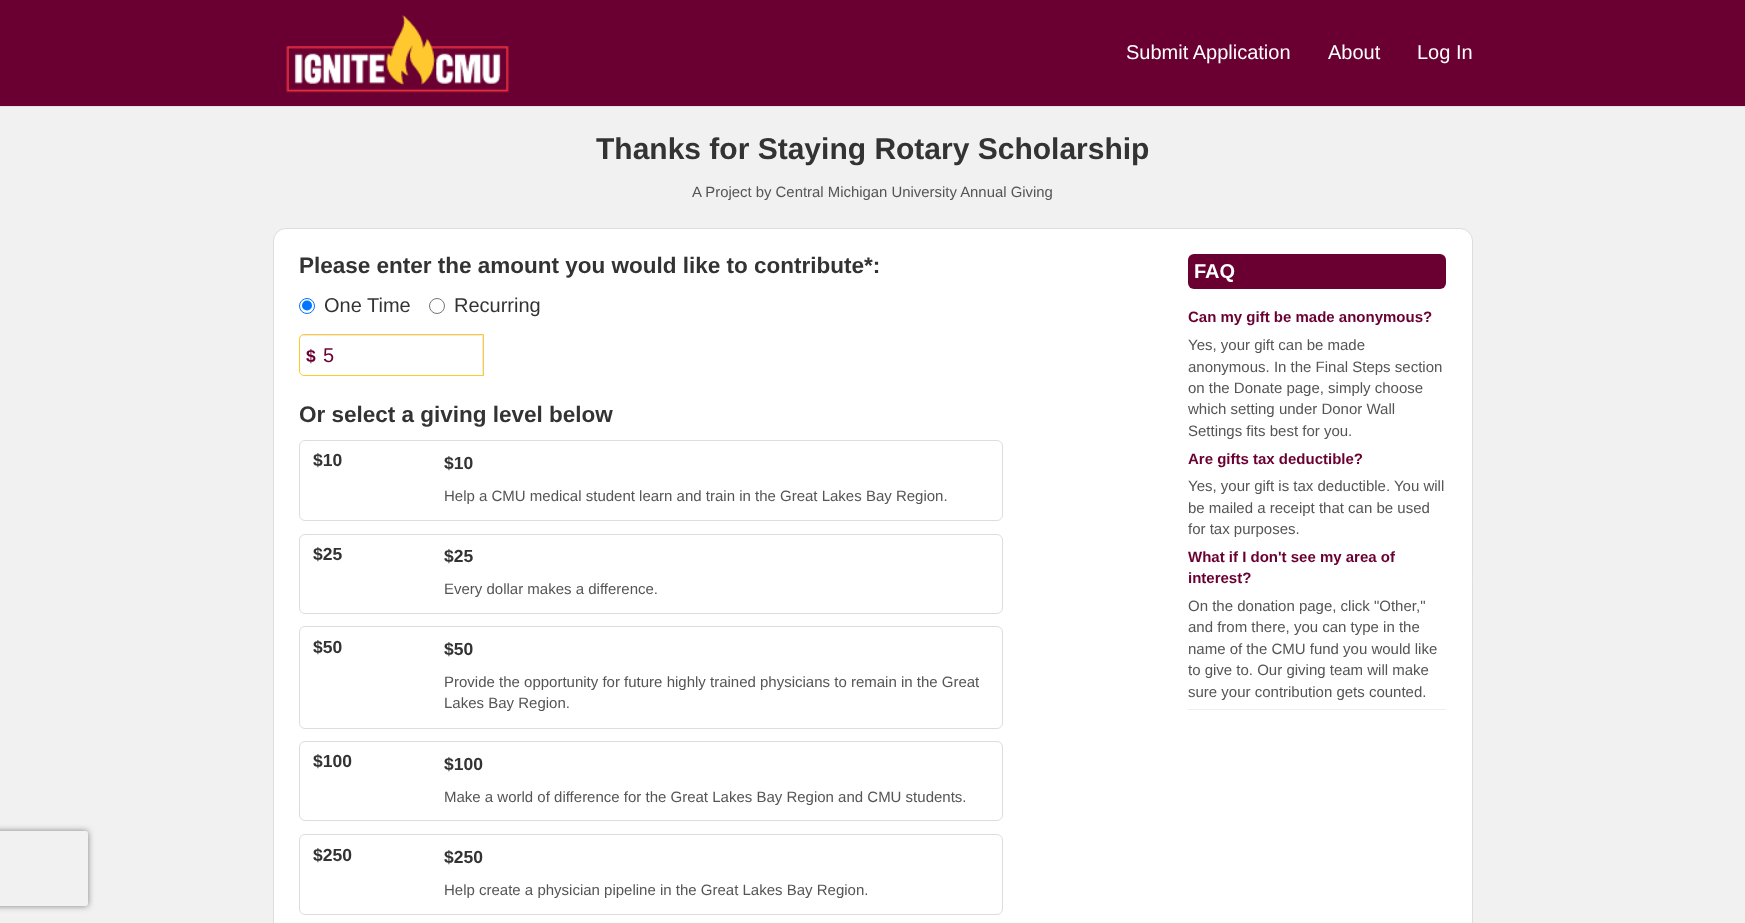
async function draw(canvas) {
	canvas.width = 1745;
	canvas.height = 923;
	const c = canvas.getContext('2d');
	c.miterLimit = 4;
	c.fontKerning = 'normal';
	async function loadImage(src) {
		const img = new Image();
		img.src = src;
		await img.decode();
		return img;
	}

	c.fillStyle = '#6a0032';
	c.fillRect(0, 0, 1745, 923);
	c.drawImage(await loadImage('img1.png'), 286, 15, 223, 78);
	c.font = '20px Liberation Sans';
	c.fillStyle = '#fff';
	for (const [text, x, y] of [
		['Submit Application', 1126, 59],
		['About', 1328, 59],
		['Log In', 1417, 59],
	]) {
		c.fillText(text, x, y);
	}
	c.fillStyle = '#f1f1f1';
	c.fillRect(0, 107, 1745, 816);
	c.save();
	c.beginPath();
	c.moveTo(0, 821);
	c.lineTo(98, 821);
	c.lineTo(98, 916);
	c.lineTo(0, 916);
	c.closePath();
	c.moveTo(-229.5, 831);
	c.lineTo(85.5, 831);
	c.bezierCurveTo(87, 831, 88, 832, 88, 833.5);
	c.lineTo(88, 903.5);
	c.bezierCurveTo(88, 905, 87, 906, 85.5, 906);
	c.lineTo(-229.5, 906);
	c.bezierCurveTo(-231, 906, -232, 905, -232, 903.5);
	c.lineTo(-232, 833.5);
	c.bezierCurveTo(-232, 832, -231, 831, -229.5, 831);
	c.closePath();
	c.clip('evenodd');
	c.fillStyle = '#808080';
	c.filter = 'blur(3px)';
	c.beginPath();
	c.roundRect(-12, 831, 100, 75, 2.5);
	c.fill();
	c.filter = 'none';
	c.restore();
	c.fillStyle = '#e4e4e4';
	c.fillRect(0, 106, 1745, 1);
	c.font = 'bold 30px Liberation Sans';
	c.fillStyle = '#333';
	c.fillText('Thanks for Staying Rotary Scholarship', 596, 159);
	c.font = '14.9px Liberation Sans';
	c.fillStyle = '#555';
	c.fillText('A Project by Central Michigan University Annual Giving', 692, 197);
	c.fillStyle = '#fff';
	c.beginPath();
	c.roundRect(273.5, 228.5, 1199, 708, 12.5);
	c.fill();
	c.strokeStyle = '#ddd';
	c.stroke();
	c.font = 'bold 22.5px Liberation Sans';
	c.fillStyle = '#333';
	c.fillText('Please enter the amount you would like to contribute*:', 299, 273);
	c.beginPath();
	c.arc(307, 306, 7.5, 0, 2 * Math.PI);
	c.strokeStyle = '#0075ff';
	c.stroke();
	c.fillStyle = '#0075ff';
	c.beginPath();
	c.arc(307, 305.5, 5, 0, 2 * Math.PI);
	c.fill();
	c.font = '20px Liberation Sans';
	c.fillStyle = '#333';
	c.fillText('One Time', 324, 312);
	c.beginPath();
	c.arc(437, 306, 7.5, 0, 2 * Math.PI);
	c.strokeStyle = '#767676';
	c.stroke();
	c.fillText('Recurring', 454, 312);
	c.fillStyle = '#ececec';
	c.beginPath();
	c.moveTo(304, 336);
	c.lineTo(482, 336);
	c.lineTo(482, 375);
	c.lineTo(483, 375);
	c.lineTo(483, 335);
	c.lineTo(303, 335);
	c.bezierCurveTo(301, 336, 300, 338, 300, 340);
	c.bezierCurveTo(300, 338, 302, 336, 304, 336);
	c.closePath();
	c.fill();
	c.beginPath();
	c.roundRect(299.5, 334.5, 184, 41, [4.5, 0, 0, 4.5]);
	c.strokeStyle = '#ffc82e';
	c.stroke();
	c.font = 'bold 17.5px Liberation Sans';
	c.fillStyle = '#6a0032';
	c.fillText('$', 306, 362);
	c.font = '20px Liberation Sans';
	c.fillText('5', 323, 362);
	c.font = 'bold 22.5px Liberation Sans';
	c.fillStyle = '#333';
	c.fillText('Or select a giving level below', 299, 422);
	c.beginPath();
	c.roundRect(299.5, 440.5, 703, 80, 5.5);
	c.strokeStyle = '#ddd';
	c.stroke();
	c.font = 'bold 17.5px Liberation Sans';
	c.fillText('$10', 313, 466);
	c.fillText('$10', 444, 469);
	c.font = '15px Liberation Sans';
	c.fillStyle = '#555';
	c.fillText('Help a CMU medical student learn and train in the Great Lakes Bay Region.', 444, 501);
	c.beginPath();
	c.roundRect(299.5, 534.5, 703, 79, 5.5);
	c.stroke();
	c.font = 'bold 17.5px Liberation Sans';
	c.fillStyle = '#333';
	c.fillText('$25', 313, 560);
	c.fillText('$25', 444, 562);
	c.font = '15px Liberation Sans';
	c.fillStyle = '#555';
	c.fillText('Every dollar makes a difference.', 444, 594);
	c.beginPath();
	c.roundRect(299.5, 626.5, 703, 102, 5.5);
	c.stroke();
	c.font = 'bold 17.5px Liberation Sans';
	c.fillStyle = '#333';
	c.fillText('$50', 313, 653);
	c.fillText('$50', 444, 655);
	c.font = '15px Liberation Sans';
	c.fillStyle = '#555';
	c.fillText('Provide the opportunity for future highly trained physicians to remain in the Great', 444, 687);
	c.fillText('Lakes Bay Region.', 444, 708);
	c.beginPath();
	c.roundRect(299.5, 741.5, 703, 79, 5.5);
	c.stroke();
	c.font = 'bold 17.5px Liberation Sans';
	c.fillStyle = '#333';
	c.fillText('$100', 313, 767);
	c.fillText('$100', 444, 770);
	c.font = '15px Liberation Sans';
	c.fillStyle = '#555';
	c.fillText('Make a world of difference for the Great Lakes Bay Region and CMU students.', 444, 802);
	c.beginPath();
	c.roundRect(299.5, 834.5, 703, 80, 5.5);
	c.stroke();
	c.font = 'bold 17.5px Liberation Sans';
	c.fillStyle = '#333';
	c.fillText('$250', 313, 861);
	c.fillText('$250', 444, 863);
	c.font = '15px Liberation Sans';
	c.fillStyle = '#555';
	c.fillText('Help create a physician pipeline in the Great Lakes Bay Region.', 444, 895);
	c.fillStyle = '#6a0032';
	c.beginPath();
	c.roundRect(1188, 254, 258, 35, 6);
	c.fill();
	c.font = 'bold 20px Liberation Sans';
	c.fillStyle = '#fff';
	c.fillText('FAQ', 1194, 278);
	c.fillStyle = '#eee';
	c.fillRect(1188, 709, 258, 1);
	c.font = 'bold 15px Liberation Sans';
	c.fillStyle = '#6a0032';
	c.fillText('Can my gift be made anonymous?', 1188, 322);
	c.font = '15px Liberation Sans';
	c.fillStyle = '#555';
	for (const [text, x, y] of [
		['Yes, your gift can be made', 1188, 350],
		['anonymous. In the Final Steps section', 1188, 372],
		['on the Donate page, simply choose', 1188, 393],
		['which setting under Donor Wall', 1188, 414],
		['Settings fits best for you.', 1188, 436],
	]) {
		c.fillText(text, x, y);
	}
	c.font = 'bold 15px Liberation Sans';
	c.fillStyle = '#6a0032';
	c.fillText('Are gifts tax deductible?', 1188, 464);
	c.font = '15px Liberation Sans';
	c.fillStyle = '#555';
	for (const [text, x, y] of [
		['Yes, your gift is tax deductible. You will', 1188, 491],
		['be mailed a receipt that can be used', 1188, 513],
		['for tax purposes.', 1188, 534],
	]) {
		c.fillText(text, x, y);
	}
	c.font = 'bold 15px Liberation Sans';
	c.fillStyle = '#6a0032';
	c.fillText('What if I don\'t see my area of', 1188, 562);
	c.fillText('interest?', 1188, 583);
	c.font = '15px Liberation Sans';
	c.fillStyle = '#555';
	for (const [text, x, y] of [
		['On the donation page, click "Other,"', 1188, 611],
		['and from there, you can type in the', 1188, 632],
		['name of the CMU fund you would like', 1188, 654],
		['to give to. Our giving team will make', 1188, 675],
		['sure your contribution gets counted.', 1188, 697],
	]) {
		c.fillText(text, x, y);
	}
}

draw(document.querySelector('canvas'));
